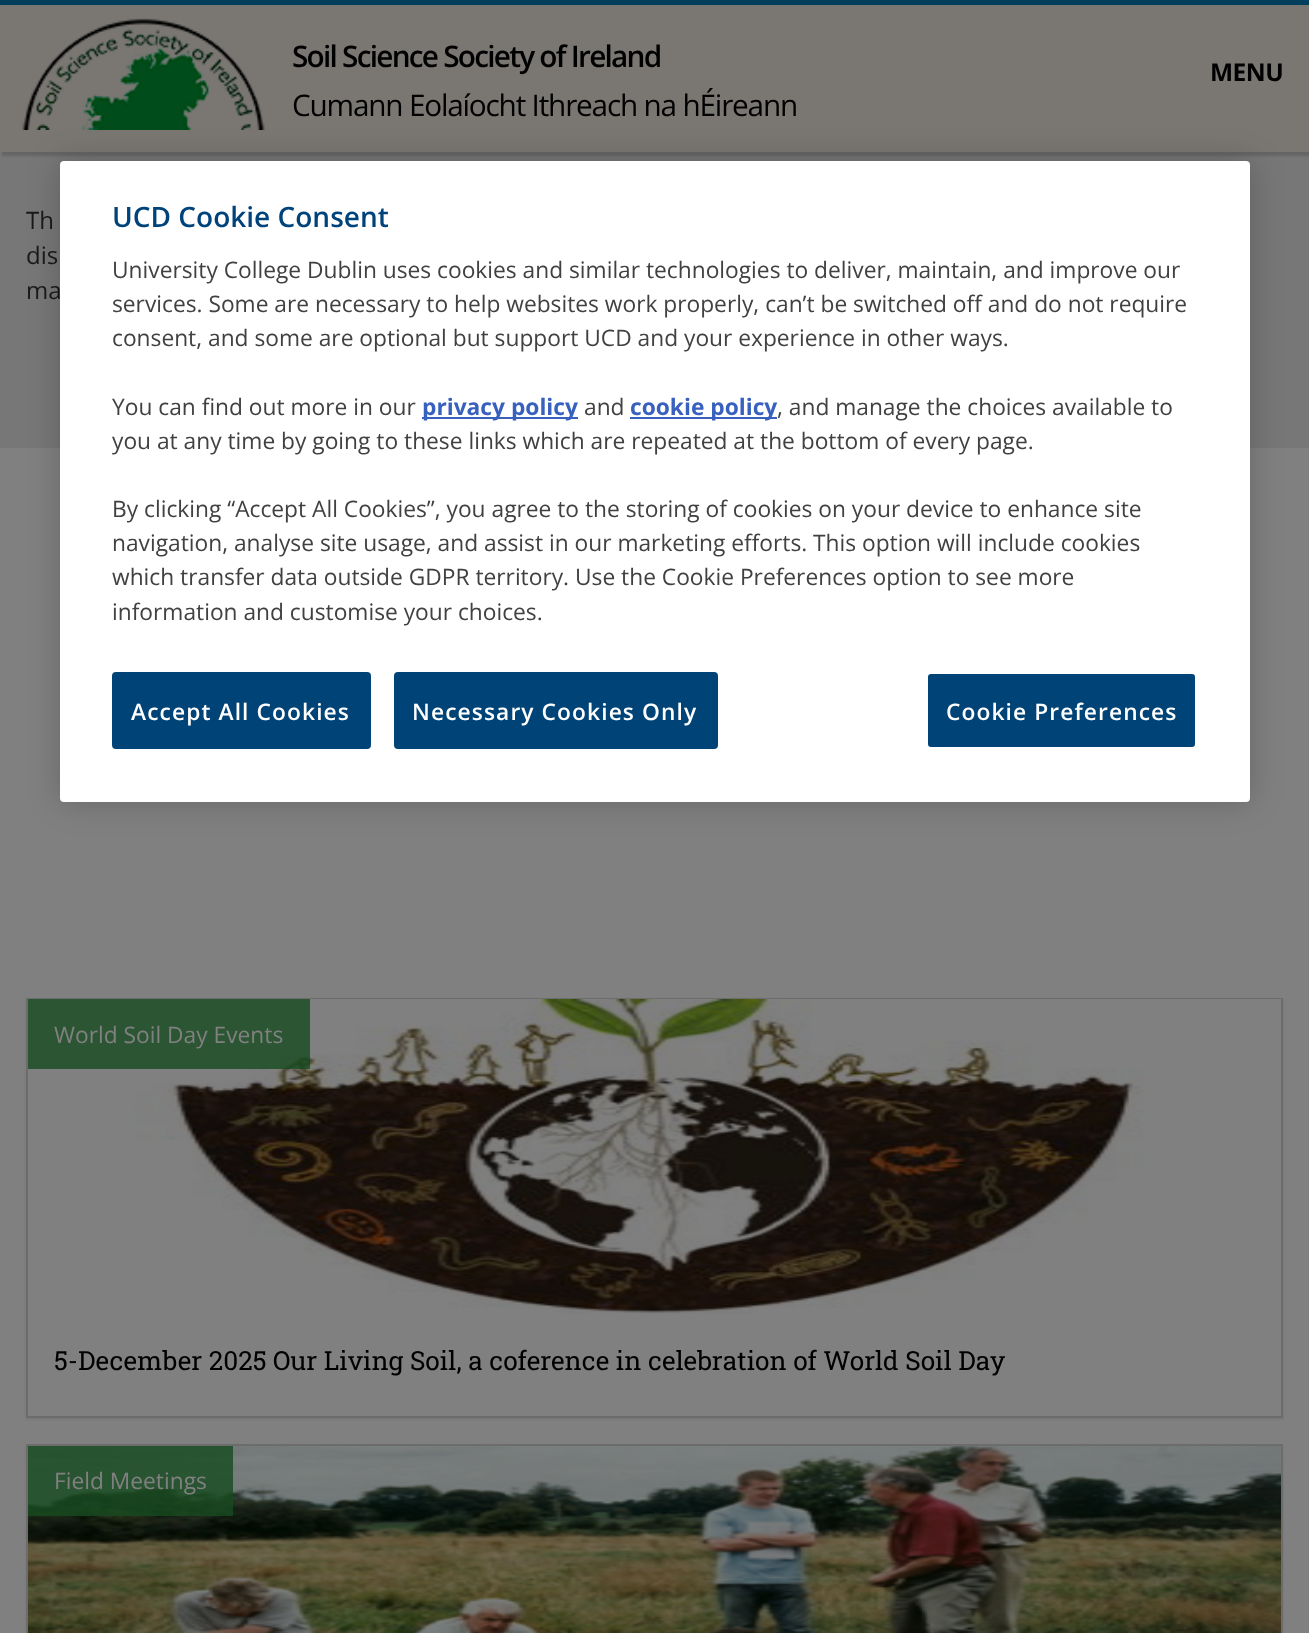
async function draw(canvas) {
	canvas.width = 1309;
	canvas.height = 1633;
	const c = canvas.getContext('2d');
	c.miterLimit = 4;
	c.fontKerning = 'normal';
	async function loadImage(src) {
		const img = new Image();
		img.src = src;
		await img.decode();
		return img;
	}

	c.fillStyle = '#808080';
	c.fillRect(0, 0, 1309, 1633);
	c.fillStyle = '#777';
	c.fillRect(0, 152, 1309, 296);
	c.fillStyle = '#00000026';
	c.filter = 'blur(1px)';
	c.beginPath();
	c.rect(2, 4, 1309, 152);
	c.fill();
	c.filter = 'none';
	c.fillStyle = '#7a7773';
	c.fillRect(0, 5, 1309, 147);
	c.fillStyle = '#003f5b';
	c.fillRect(0, 0, 1309, 5);
	c.drawImage(await loadImage('img1.png'), 22, 18, 243, 112);
	c.letterSpacing = '-1.75px';
	c.font = '600 29.75px Open Sans';
	c.fillStyle = '#000';
	c.fillText('Soil Science Society of Ireland', 292, 67);
	c.letterSpacing = '-1.2px';
	c.font = '29.75px Open Sans';
	c.fillText('Cumann Eolaíocht Ithreach na hÉireann', 292, 116);
	c.letterSpacing = '-0.5px';
	c.font = 'bold 24.5px Open Sans';
	c.fillText('MENU', 1210, 81);
	c.letterSpacing = '0px';
	c.font = '24px Open Sans';
	c.fillStyle = '#1a1a1a';
	for (const [text, x, y] of [
		['Th', 26, 229],
		['dis', 26, 264],
		['ma', 26, 299],
	]) {
		c.fillText(text, x, y);
	}
	c.fillStyle = '#00000033';
	c.filter = 'blur(16px)';
	c.beginPath();
	c.roundRect(60, 161, 1190, 641, 4);
	c.fill();
	c.filter = 'none';
	c.fillStyle = '#fff';
	c.beginPath();
	c.roundRect(60, 161, 1190, 641, 4);
	c.fill();
	c.font = '600 28px Open Sans';
	c.fillStyle = '#00427a';
	c.fillText('UCD Cookie Consent', 112, 227);
	c.font = '22.75px Open Sans';
	c.fillStyle = '#414141';
	for (const [text, x, y] of [
		['University College Dublin uses cookies and similar technologies to deliver, maintain, and improve our', 112, 278],
		['services. Some are necessary to help websites work properly, can’t be switched off and do not require', 112, 312],
		['consent, and some are optional but support UCD and your experience in other ways.', 112, 346],
		['You can find out more in our', 112, 415],
	]) {
		c.fillText(text, x, y);
	}
	c.fillStyle = '#3860be';
	c.fillRect(422, 417, 156, 2);
	c.font = 'bold 22.75px Open Sans';
	c.fillText('privacy policy', 422, 415);
	c.font = '22.75px Open Sans';
	c.fillStyle = '#414141';
	c.fillText('and', 584, 415);
	c.fillStyle = '#3860be';
	c.fillRect(630, 417, 147, 2);
	c.font = 'bold 22.75px Open Sans';
	c.fillText('cookie policy', 630, 415);
	c.font = '22.75px Open Sans';
	c.fillStyle = '#414141';
	for (const [text, x, y] of [
		[', and manage the choices available to', 777, 415],
		['you at any time by going to these links which are repeated at the bottom of every page.', 112, 449],
		['By clicking “Accept All Cookies”, you agree to the storing of cookies on your device to enhance site', 112, 517],
		['navigation, analyse site usage, and assist in our marketing efforts.', 112, 551],
		['This option will include cookies', 813, 551],
		['which transfer data outside GDPR territory. Use the Cookie Preferences option to see more', 112, 585],
		['information and customise your choices.', 112, 620],
	]) {
		c.fillText(text, x, y);
	}
	c.fillStyle = '#004377';
	c.beginPath();
	c.roundRect(113, 673, 257, 75, 3);
	c.fill();
	c.strokeStyle = '#004377';
	c.lineWidth = 2;
	c.stroke();
	c.letterSpacing = '1.1px';
	c.font = '600 22.75px Open Sans';
	c.fillStyle = '#fff';
	c.fillText('Accept All Cookies', 131, 720);
	c.fillStyle = '#004377';
	c.beginPath();
	c.roundRect(395, 673, 322, 75, 3);
	c.fill();
	c.stroke();
	c.fillStyle = '#fff';
	c.fillText('Necessary Cookies Only', 412, 720);
	c.fillStyle = '#004377';
	c.beginPath();
	c.roundRect(927, 673, 269, 75, 4);
	c.fill();
	c.strokeStyle = '#fff';
	c.stroke();
	c.fillStyle = '#fff';
	c.fillText('Cookie Preferences', 946, 720);
	c.fillStyle = '#00000017';
	c.filter = 'blur(1px)';
	c.beginPath();
	c.rect(26, 999, 1257, 420);
	c.fill();
	c.filter = 'none';
	c.fillStyle = '#808080';
	c.fillRect(28, 1314, 1253, 102);
	c.strokeStyle = '#6c6c6c';
	c.strokeRect(27, 999, 1255, 418);
	c.drawImage(await loadImage('img2.png'), 28, 999, 1253, 315);
	c.fillStyle = '#174b1fcc';
	c.fillRect(28, 999, 282, 70);
	c.letterSpacing = '0px';
	c.font = '22.75px Open Sans';
	c.fillStyle = '#808080';
	c.fillText('World Soil Day Events', 54, 1043);
	c.font = '26.25px Roboto Slab';
	c.fillStyle = '#000';
	c.fillText('5-December 2025 Our Living Soil, a coference in celebration of World Soil Day', 54, 1370);
	c.fillStyle = '#00000017';
	c.filter = 'blur(1px)';
	c.beginPath();
	c.rect(26, 1446, 1257, 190);
	c.fill();
	c.filter = 'none';
	c.strokeRect(27, 1445, 1255, 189);
	c.drawImage(await loadImage('img3.png'), 28, 1446, 1253, 187);
	c.fillStyle = '#174b1fcc';
	c.fillRect(28, 1446, 205, 70);
	c.font = '22.75px Open Sans';
	c.fillStyle = '#808080';
	c.fillText('Field Meetings', 54, 1489);
}

draw(document.querySelector('canvas'));
